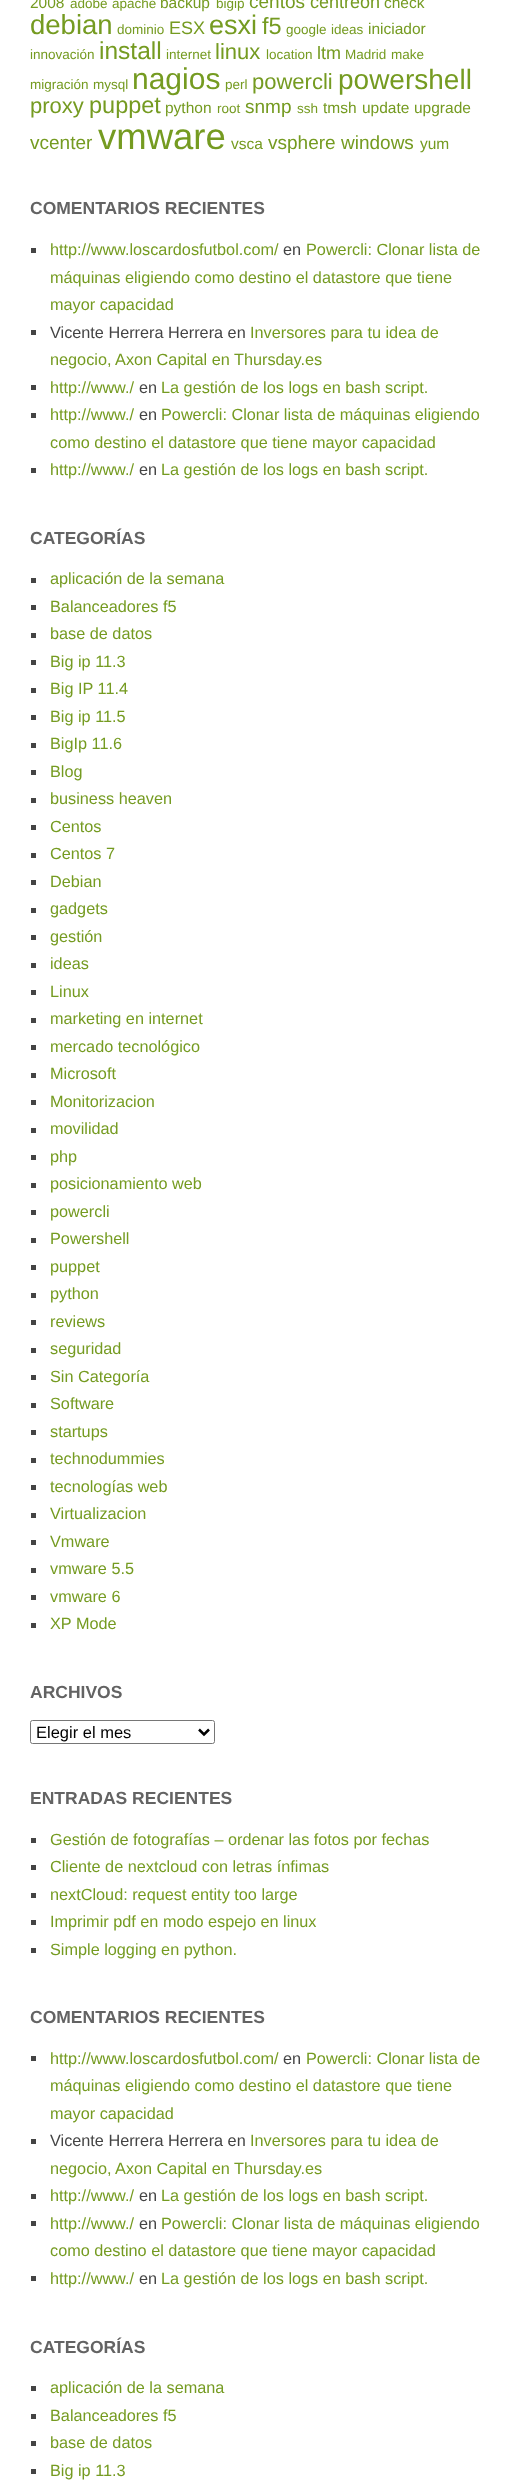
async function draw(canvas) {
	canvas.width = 515;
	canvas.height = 2491;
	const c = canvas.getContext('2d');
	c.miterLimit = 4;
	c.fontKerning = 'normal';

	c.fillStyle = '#fff';
	c.fillRect(0, 0, 515, 2491);
	c.font = '15.5px Liberation Sans';
	c.fillStyle = '#759b21';
	c.fillText('2008', 30, 8);
	c.font = '13.5px Liberation Sans';
	c.fillText('adobe', 70, 8);
	c.fillText('apache', 112, 8);
	c.font = '15.5px Liberation Sans';
	c.fillText('backup', 160, 8);
	c.font = '13.5px Liberation Sans';
	c.fillText('bigip', 216, 8);
	c.font = '19px Liberation Sans';
	c.fillText('centos', 249, 8);
	c.font = '18px Liberation Sans';
	c.fillText('centreon', 310, 8);
	c.font = '15.5px Liberation Sans';
	c.fillText('check', 384, 8);
	c.font = '27.5px Liberation Sans';
	c.fillText('debian', 30, 34);
	c.font = '13.5px Liberation Sans';
	c.fillText('dominio', 117, 34);
	c.font = '18px Liberation Sans';
	c.fillText('ESX', 169, 34);
	c.font = '27px Liberation Sans';
	c.fillText('esxi', 209, 34);
	c.font = '23.5px Liberation Sans';
	c.fillText('f5', 262, 34);
	c.font = '13.5px Liberation Sans';
	c.fillText('google', 286, 34);
	c.fillText('ideas', 331, 34);
	c.font = '15.5px Liberation Sans';
	c.fillText('iniciador', 368, 34);
	c.font = '13.5px Liberation Sans';
	c.fillText('innovación', 30, 59);
	c.font = '24.5px Liberation Sans';
	c.fillText('install', 99, 59);
	c.font = '13.5px Liberation Sans';
	c.fillText('internet', 166, 59);
	c.font = '22px Liberation Sans';
	c.fillText('linux', 215, 59);
	c.font = '13.5px Liberation Sans';
	c.fillText('location', 266, 59);
	c.font = '18px Liberation Sans';
	c.fillText('ltm', 317, 59);
	c.font = '13.5px Liberation Sans';
	for (const [text, x, y] of [
		['Madrid', 345, 59],
		['make', 391, 59],
		['migración', 30, 89],
		['mysql', 93, 89],
	]) {
		c.fillText(text, x, y);
	}
	c.font = '30px Liberation Sans';
	c.fillText('nagios', 132, 89);
	c.font = '13.5px Liberation Sans';
	c.fillText('perl', 225, 89);
	c.font = '22px Liberation Sans';
	c.fillText('powercli', 252, 89);
	c.font = '28px Liberation Sans';
	c.fillText('powershell', 338, 89);
	c.font = '22px Liberation Sans';
	c.fillText('proxy', 30, 113);
	c.font = '23.5px Liberation Sans';
	c.fillText('puppet', 89, 113);
	c.font = '15.5px Liberation Sans';
	c.fillText('python', 165, 113);
	c.font = '13.5px Liberation Sans';
	c.fillText('root', 217, 113);
	c.font = '19px Liberation Sans';
	c.fillText('snmp', 245, 113);
	c.font = '13.5px Liberation Sans';
	c.fillText('ssh', 297, 113);
	c.font = '15.5px Liberation Sans';
	for (const [text, x, y] of [
		['tmsh', 323, 113],
		['update', 362, 113],
		['upgrade', 414, 113],
	]) {
		c.fillText(text, x, y);
	}
	c.font = '19px Liberation Sans';
	c.fillText('vcenter', 30, 149);
	c.font = '36.5px Liberation Sans';
	c.fillText('vmware', 98, 149);
	c.font = '15.5px Liberation Sans';
	c.fillText('vsca', 231, 149);
	c.font = '19px Liberation Sans';
	c.fillText('vsphere', 268, 149);
	c.fillText('windows', 341, 149);
	c.font = '15.5px Liberation Sans';
	c.fillText('yum', 420, 149);
	c.font = 'bold 17.5px Liberation Sans';
	c.fillStyle = '#636363';
	c.fillText('COMENTARIOS RECIENTES', 30, 214);
	c.fillStyle = '#444';
	c.fillRect(31, 248, 5, 5);
	c.font = '16.25px Liberation Sans';
	c.fillStyle = '#759b21';
	c.fillText('http://www.loscardosfutbol.com/', 50, 255);
	c.fillStyle = '#444';
	c.fillText('en', 283, 255);
	c.fillStyle = '#759b21';
	for (const [text, x, y] of [
		['Powercli: Clonar lista de', 306, 255],
		['máquinas eligiendo como destino el datastore que tiene', 50, 283],
		['mayor capacidad', 50, 310],
	]) {
		c.fillText(text, x, y);
	}
	c.fillStyle = '#444';
	c.fillRect(31, 330, 5, 5);
	c.fillText('Vicente Herrera Herrera en', 50, 338);
	c.fillStyle = '#759b21';
	c.fillText('Inversores para tu idea de', 250, 338);
	c.fillText('negocio, Axon Capital en Thursday.es', 50, 365);
	c.fillStyle = '#444';
	c.fillRect(31, 385, 5, 5);
	c.fillStyle = '#759b21';
	c.fillText('http://www./', 50, 393);
	c.fillStyle = '#444';
	c.fillText('en', 139, 393);
	c.fillStyle = '#759b21';
	c.fillText('La gestión de los logs en bash script.', 161, 393);
	c.fillStyle = '#444';
	c.fillRect(31, 413, 5, 5);
	c.fillStyle = '#759b21';
	c.fillText('http://www./', 50, 420);
	c.fillStyle = '#444';
	c.fillText('en', 139, 420);
	c.fillStyle = '#759b21';
	c.fillText('Powercli: Clonar lista de máquinas eligiendo', 161, 420);
	c.fillText('como destino el datastore que tiene mayor capacidad', 50, 448);
	c.fillStyle = '#444';
	c.fillRect(31, 468, 5, 5);
	c.fillStyle = '#759b21';
	c.fillText('http://www./', 50, 475);
	c.fillStyle = '#444';
	c.fillText('en', 139, 475);
	c.fillStyle = '#759b21';
	c.fillText('La gestión de los logs en bash script.', 161, 475);
	c.font = 'bold 17.5px Liberation Sans';
	c.fillStyle = '#636363';
	c.fillText('CATEGORÍAS', 30, 544);
	c.fillStyle = '#444';
	c.fillRect(31, 578, 5, 5);
	c.font = '16.25px Liberation Sans';
	c.fillStyle = '#759b21';
	c.fillText('aplicación de la semana', 50, 584);
	c.fillStyle = '#444';
	c.fillRect(31, 605, 5, 5);
	c.fillStyle = '#759b21';
	c.fillText('Balanceadores f5', 50, 612);
	c.fillStyle = '#444';
	c.fillRect(31, 633, 5, 5);
	c.fillStyle = '#759b21';
	c.fillText('base de datos', 50, 639);
	c.fillStyle = '#444';
	c.fillRect(31, 660, 5, 5);
	c.fillStyle = '#759b21';
	c.fillText('Big ip 11.3', 50, 667);
	c.fillStyle = '#444';
	c.fillRect(31, 688, 5, 5);
	c.fillStyle = '#759b21';
	c.fillText('Big IP 11.4', 50, 694);
	c.fillStyle = '#444';
	c.fillRect(31, 715, 5, 5);
	c.fillStyle = '#759b21';
	c.fillText('Big ip 11.5', 50, 722);
	c.fillStyle = '#444';
	c.fillRect(31, 743, 5, 5);
	c.fillStyle = '#759b21';
	c.fillText('BigIp 11.6', 50, 749);
	c.fillStyle = '#444';
	c.fillRect(31, 770, 5, 5);
	c.fillStyle = '#759b21';
	c.fillText('Blog', 50, 777);
	c.fillStyle = '#444';
	c.fillRect(31, 798, 5, 5);
	c.fillStyle = '#759b21';
	c.fillText('business heaven', 50, 804);
	c.fillStyle = '#444';
	c.fillRect(31, 825, 5, 5);
	c.fillStyle = '#759b21';
	c.fillText('Centos', 50, 832);
	c.fillStyle = '#444';
	c.fillRect(31, 853, 5, 5);
	c.fillStyle = '#759b21';
	c.fillText('Centos 7', 50, 859);
	c.fillStyle = '#444';
	c.fillRect(31, 880, 5, 5);
	c.fillStyle = '#759b21';
	c.fillText('Debian', 50, 887);
	c.fillStyle = '#444';
	c.fillRect(31, 908, 5, 5);
	c.fillStyle = '#759b21';
	c.fillText('gadgets', 50, 914);
	c.fillStyle = '#444';
	c.fillRect(31, 935, 5, 5);
	c.fillStyle = '#759b21';
	c.fillText('gestión', 50, 942);
	c.fillStyle = '#444';
	c.fillRect(31, 963, 5, 5);
	c.fillStyle = '#759b21';
	c.fillText('ideas', 50, 969);
	c.fillStyle = '#444';
	c.fillRect(31, 990, 5, 5);
	c.fillStyle = '#759b21';
	c.fillText('Linux', 50, 997);
	c.fillStyle = '#444';
	c.fillRect(31, 1018, 5, 5);
	c.fillStyle = '#759b21';
	c.fillText('marketing en internet', 50, 1024);
	c.fillStyle = '#444';
	c.fillRect(31, 1045, 5, 5);
	c.fillStyle = '#759b21';
	c.fillText('mercado tecnológico', 50, 1052);
	c.fillStyle = '#444';
	c.fillRect(31, 1073, 5, 5);
	c.fillStyle = '#759b21';
	c.fillText('Microsoft', 50, 1079);
	c.fillStyle = '#444';
	c.fillRect(31, 1100, 5, 5);
	c.fillStyle = '#759b21';
	c.fillText('Monitorizacion', 50, 1107);
	c.fillStyle = '#444';
	c.fillRect(31, 1128, 5, 5);
	c.fillStyle = '#759b21';
	c.fillText('movilidad', 50, 1134);
	c.fillStyle = '#444';
	c.fillRect(31, 1155, 5, 5);
	c.fillStyle = '#759b21';
	c.fillText('php', 50, 1162);
	c.fillStyle = '#444';
	c.fillRect(31, 1183, 5, 5);
	c.fillStyle = '#759b21';
	c.fillText('posicionamiento web', 50, 1189);
	c.fillStyle = '#444';
	c.fillRect(31, 1210, 5, 5);
	c.fillStyle = '#759b21';
	c.fillText('powercli', 50, 1217);
	c.fillStyle = '#444';
	c.fillRect(31, 1238, 5, 5);
	c.fillStyle = '#759b21';
	c.fillText('Powershell', 50, 1244);
	c.fillStyle = '#444';
	c.fillRect(31, 1265, 5, 5);
	c.fillStyle = '#759b21';
	c.fillText('puppet', 50, 1272);
	c.fillStyle = '#444';
	c.fillRect(31, 1293, 5, 5);
	c.fillStyle = '#759b21';
	c.fillText('python', 50, 1299);
	c.fillStyle = '#444';
	c.fillRect(31, 1320, 5, 5);
	c.fillStyle = '#759b21';
	c.fillText('reviews', 50, 1327);
	c.fillStyle = '#444';
	c.fillRect(31, 1348, 5, 5);
	c.fillStyle = '#759b21';
	c.fillText('seguridad', 50, 1354);
	c.fillStyle = '#444';
	c.fillRect(31, 1375, 5, 5);
	c.fillStyle = '#759b21';
	c.fillText('Sin Categoría', 50, 1382);
	c.fillStyle = '#444';
	c.fillRect(31, 1403, 5, 5);
	c.fillStyle = '#759b21';
	c.fillText('Software', 50, 1409);
	c.fillStyle = '#444';
	c.fillRect(31, 1430, 5, 5);
	c.fillStyle = '#759b21';
	c.fillText('startups', 50, 1437);
	c.fillStyle = '#444';
	c.fillRect(31, 1458, 5, 5);
	c.fillStyle = '#759b21';
	c.fillText('technodummies', 50, 1464);
	c.fillStyle = '#444';
	c.fillRect(31, 1485, 5, 5);
	c.fillStyle = '#759b21';
	c.fillText('tecnologías web', 50, 1492);
	c.fillStyle = '#444';
	c.fillRect(31, 1513, 5, 5);
	c.fillStyle = '#759b21';
	c.fillText('Virtualizacion', 50, 1519);
	c.fillStyle = '#444';
	c.fillRect(31, 1540, 5, 5);
	c.fillStyle = '#759b21';
	c.fillText('Vmware', 50, 1547);
	c.fillStyle = '#444';
	c.fillRect(31, 1568, 5, 5);
	c.fillStyle = '#759b21';
	c.fillText('vmware 5.5', 50, 1574);
	c.fillStyle = '#444';
	c.fillRect(31, 1595, 5, 5);
	c.fillStyle = '#759b21';
	c.fillText('vmware 6', 50, 1602);
	c.fillStyle = '#444';
	c.fillRect(31, 1623, 5, 5);
	c.fillStyle = '#759b21';
	c.fillText('XP Mode', 50, 1629);
	c.font = 'bold 17.5px Liberation Sans';
	c.fillStyle = '#636363';
	c.fillText('ARCHIVOS', 30, 1698);
	c.beginPath();
	c.roundRect(30.5, 1720.5, 184, 23, 2);
	c.strokeStyle = '#767676';
	c.stroke();
	c.beginPath();
	c.moveTo(199, 1729.5);
	c.lineTo(204, 1734.5);
	c.lineTo(209, 1729.5);
	c.strokeStyle = '#000';
	c.lineWidth = 2.5;
	c.stroke();
	c.font = '16.5px Liberation Sans';
	c.fillStyle = '#000';
	c.fillText('Elegir el mes', 36, 1738);
	c.font = 'bold 17.5px Liberation Sans';
	c.fillStyle = '#636363';
	c.fillText('ENTRADAS RECIENTES', 30, 1804);
	c.fillStyle = '#444';
	c.fillRect(31, 1838, 5, 5);
	c.font = '16.25px Liberation Sans';
	c.fillStyle = '#759b21';
	c.fillText('Gestión de fotografías – ordenar las fotos por fechas', 50, 1845);
	c.fillStyle = '#444';
	c.fillRect(31, 1865, 5, 5);
	c.fillStyle = '#759b21';
	c.fillText('Cliente de nextcloud con letras ínfimas', 50, 1872);
	c.fillStyle = '#444';
	c.fillRect(31, 1893, 5, 5);
	c.fillStyle = '#759b21';
	c.fillText('nextCloud: request entity too large', 50, 1900);
	c.fillStyle = '#444';
	c.fillRect(31, 1920, 5, 5);
	c.fillStyle = '#759b21';
	c.fillText('Imprimir pdf en modo espejo en linux', 50, 1927);
	c.fillStyle = '#444';
	c.fillRect(31, 1948, 5, 5);
	c.fillStyle = '#759b21';
	c.fillText('Simple logging en python.', 50, 1955);
	c.font = 'bold 17.5px Liberation Sans';
	c.fillStyle = '#636363';
	c.fillText('COMENTARIOS RECIENTES', 30, 2023);
	c.fillStyle = '#444';
	c.fillRect(31, 2056, 5, 5);
	c.font = '16.25px Liberation Sans';
	c.fillStyle = '#759b21';
	c.fillText('http://www.loscardosfutbol.com/', 50, 2064);
	c.fillStyle = '#444';
	c.fillText('en', 283, 2064);
	c.fillStyle = '#759b21';
	for (const [text, x, y] of [
		['Powercli: Clonar lista de', 306, 2064],
		['máquinas eligiendo como destino el datastore que tiene', 50, 2091],
		['mayor capacidad', 50, 2119],
	]) {
		c.fillText(text, x, y);
	}
	c.fillStyle = '#444';
	c.fillRect(31, 2139, 5, 5);
	c.fillText('Vicente Herrera Herrera en', 50, 2146);
	c.fillStyle = '#759b21';
	c.fillText('Inversores para tu idea de', 250, 2146);
	c.fillText('negocio, Axon Capital en Thursday.es', 50, 2174);
	c.fillStyle = '#444';
	c.fillRect(31, 2194, 5, 5);
	c.fillStyle = '#759b21';
	c.fillText('http://www./', 50, 2201);
	c.fillStyle = '#444';
	c.fillText('en', 139, 2201);
	c.fillStyle = '#759b21';
	c.fillText('La gestión de los logs en bash script.', 161, 2201);
	c.fillStyle = '#444';
	c.fillRect(31, 2221, 5, 5);
	c.fillStyle = '#759b21';
	c.fillText('http://www./', 50, 2229);
	c.fillStyle = '#444';
	c.fillText('en', 139, 2229);
	c.fillStyle = '#759b21';
	c.fillText('Powercli: Clonar lista de máquinas eligiendo', 161, 2229);
	c.fillText('como destino el datastore que tiene mayor capacidad', 50, 2256);
	c.fillStyle = '#444';
	c.fillRect(31, 2276, 5, 5);
	c.fillStyle = '#759b21';
	c.fillText('http://www./', 50, 2284);
	c.fillStyle = '#444';
	c.fillText('en', 139, 2284);
	c.fillStyle = '#759b21';
	c.fillText('La gestión de los logs en bash script.', 161, 2284);
	c.font = 'bold 17.5px Liberation Sans';
	c.fillStyle = '#636363';
	c.fillText('CATEGORÍAS', 30, 2353);
	c.fillStyle = '#444';
	c.fillRect(31, 2386, 5, 5);
	c.font = '16.25px Liberation Sans';
	c.fillStyle = '#759b21';
	c.fillText('aplicación de la semana', 50, 2393);
	c.fillStyle = '#444';
	c.fillRect(31, 2414, 5, 5);
	c.fillStyle = '#759b21';
	c.fillText('Balanceadores f5', 50, 2421);
	c.fillStyle = '#444';
	c.fillRect(31, 2441, 5, 5);
	c.fillStyle = '#759b21';
	c.fillText('base de datos', 50, 2448);
	c.fillStyle = '#444';
	c.fillRect(31, 2469, 5, 5);
	c.fillStyle = '#759b21';
	c.fillText('Big ip 11.3', 50, 2476);
}

draw(document.querySelector('canvas'));
